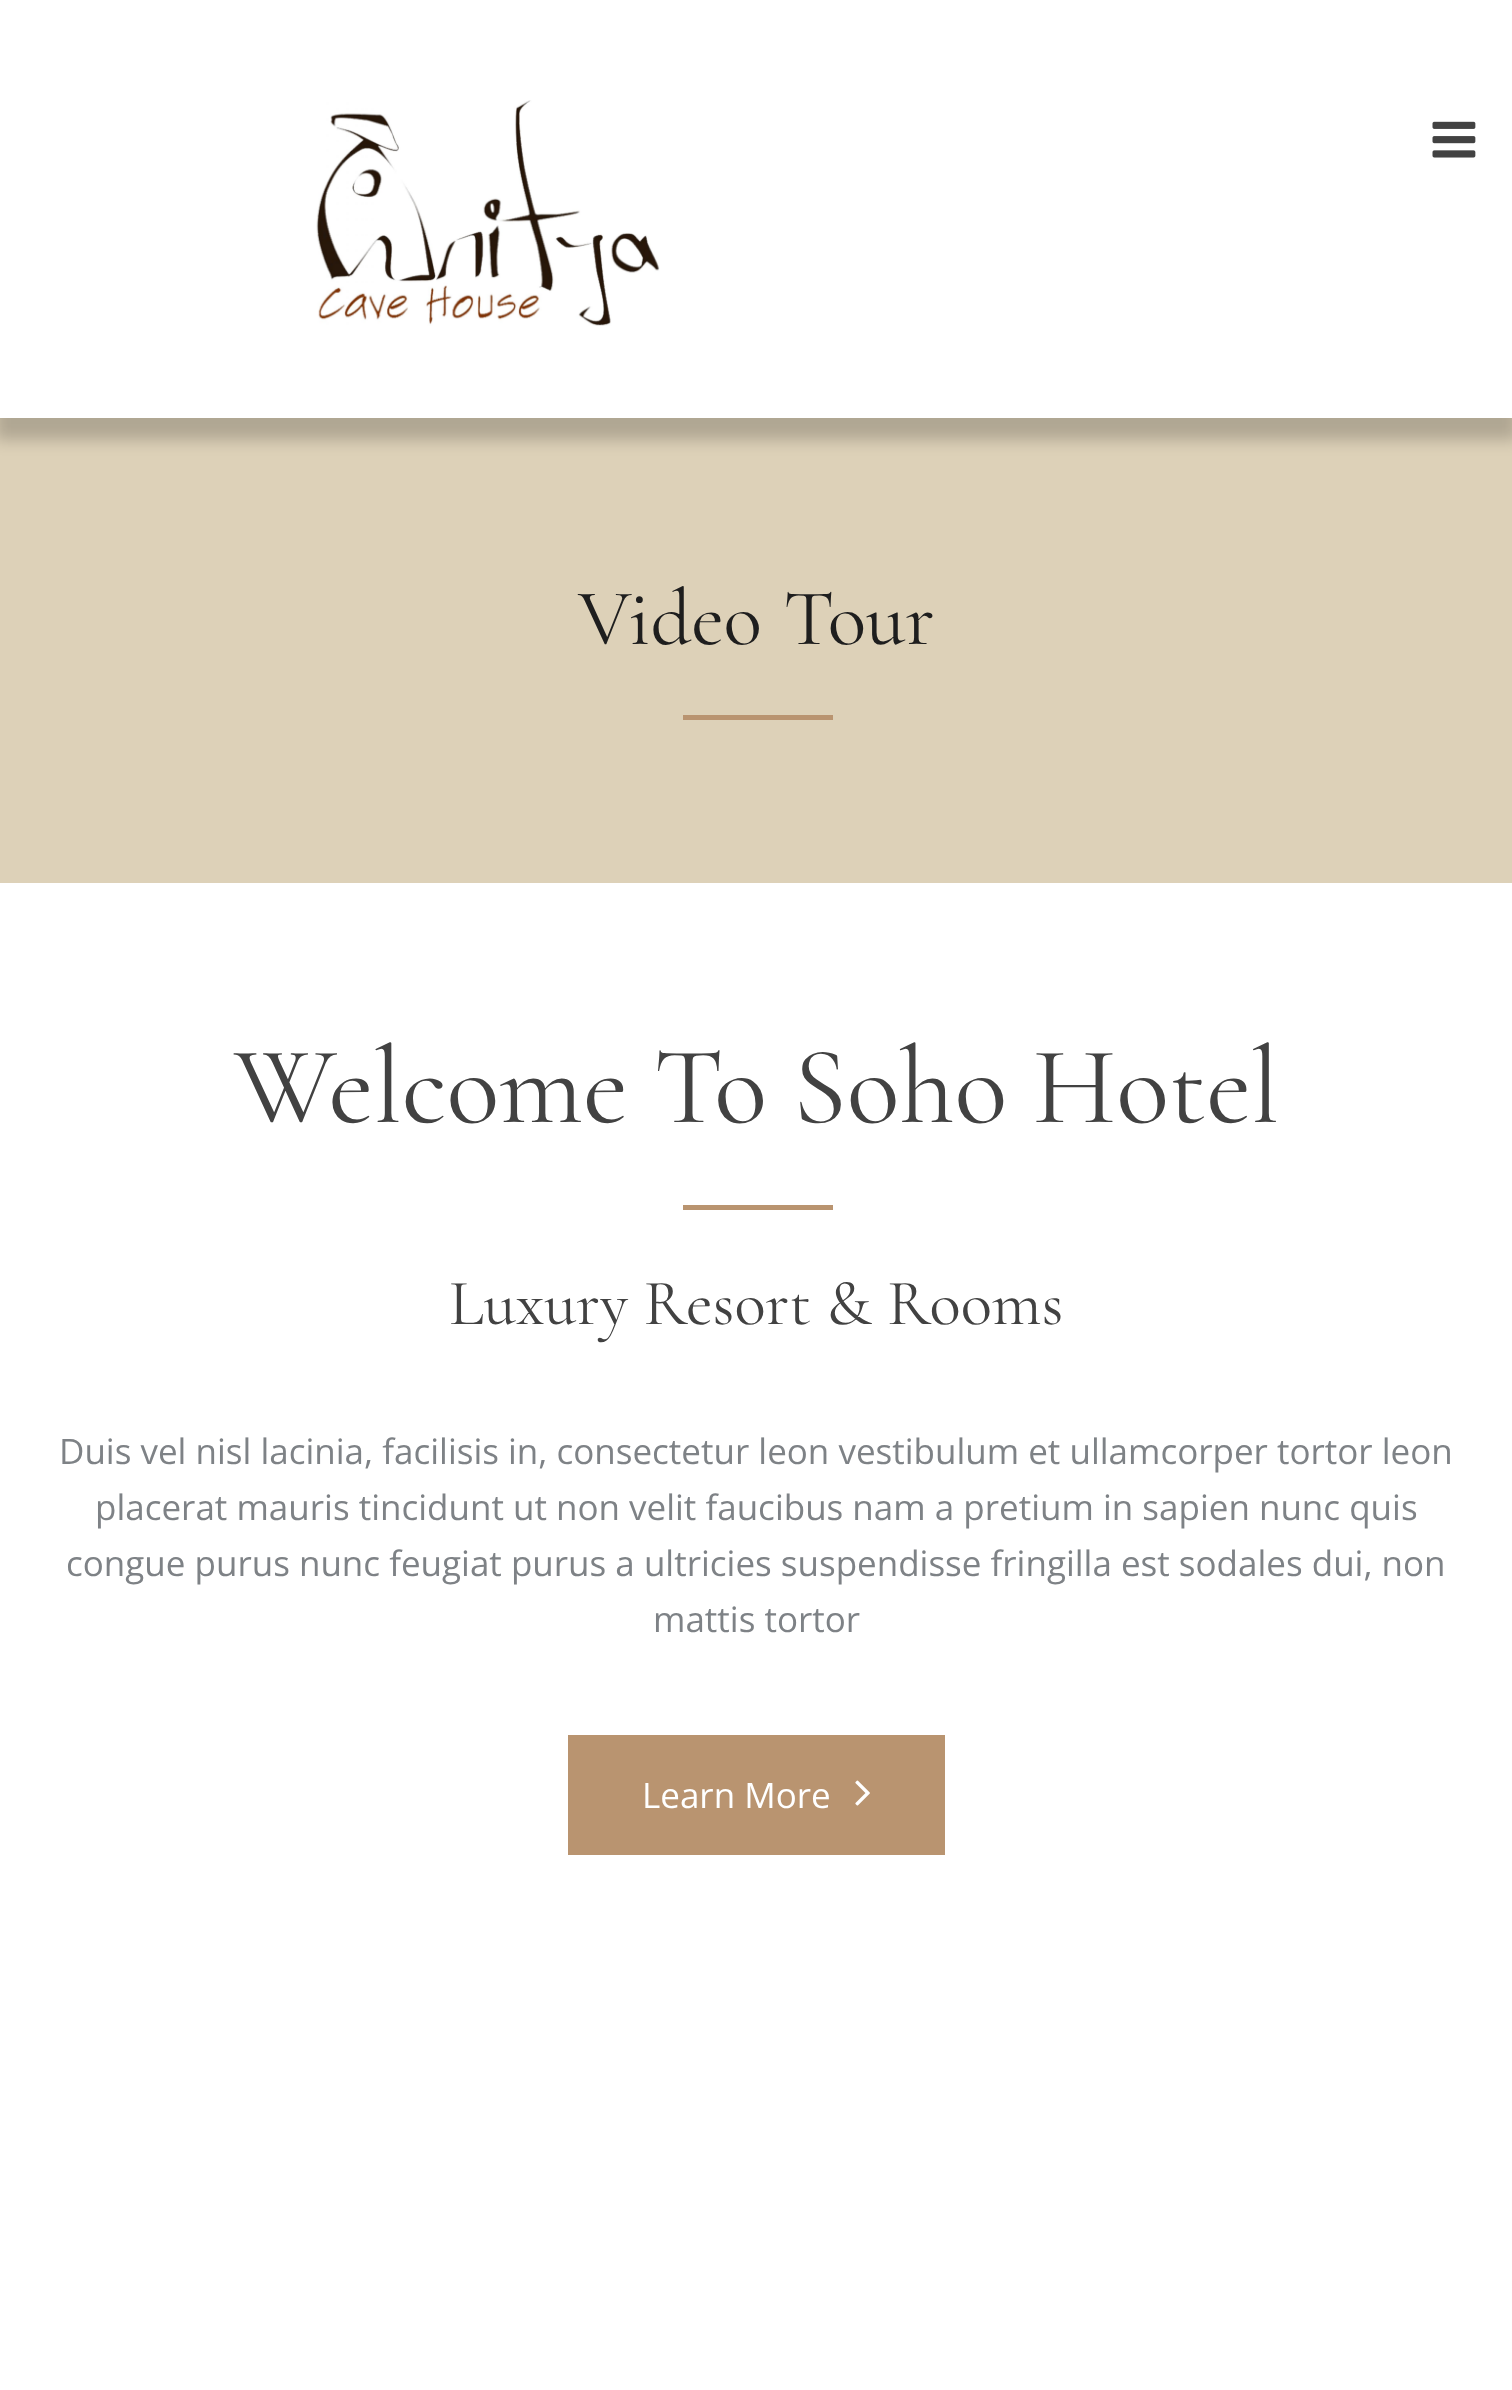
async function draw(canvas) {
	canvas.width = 1512;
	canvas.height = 2390;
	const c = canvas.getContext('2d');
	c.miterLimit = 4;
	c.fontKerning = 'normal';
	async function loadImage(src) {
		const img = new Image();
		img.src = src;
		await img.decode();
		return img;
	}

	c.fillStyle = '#fff';
	c.fillRect(0, 0, 1512, 2390);
	c.fillStyle = '#ddd1b8';
	c.fillRect(0, 418, 1512, 465);
	c.save();
	c.beginPath();
	c.moveTo(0, 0);
	c.lineTo(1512, 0);
	c.lineTo(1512, 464);
	c.lineTo(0, 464);
	c.closePath();
	c.moveTo(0, 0);
	c.lineTo(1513, 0);
	c.lineTo(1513, 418);
	c.lineTo(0, 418);
	c.closePath();
	c.clip('evenodd');
	c.fillStyle = '#00000033';
	c.filter = 'blur(7.5px)';
	c.beginPath();
	c.rect(-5, 13, 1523, 427);
	c.fill();
	c.filter = 'none';
	c.restore();
	c.drawImage(await loadImage('img1.png'), 316, 100, 344, 226);
	c.drawImage(await loadImage('img2.png'), 1432, 121, 44, 37);
	c.wordSpacing = '3px';
	c.font = '80px Cormorant';
	c.fillStyle = '#1e1e1e';
	c.fillText('Video Tour', 578, 644);
	c.fillStyle = '#b99470';
	c.fillRect(683, 715, 150, 5);
	c.wordSpacing = '0px';
	c.font = '110px Cormorant';
	c.fillStyle = '#424242';
	c.fillText('Welcome To Soho Hotel', 234, 1122);
	c.fillStyle = '#b99470';
	c.fillRect(683, 1205, 150, 5);
	c.font = '65px Cormorant';
	c.fillStyle = '#424242';
	c.fillText('Luxury Resort & Rooms', 449, 1324);
	c.font = '35px Open Sans';
	c.fillStyle = '#7e8286';
	for (const [text, x, y] of [
		['Duis vel nisl lacinia, facilisis in, consectetur leon vestibulum et ullamcorper tortor leon', 59, 1464],
		['placerat mauris tincidunt ut non velit faucibus nam a pretium in sapien nunc quis', 95, 1520],
		['congue purus nunc feugiat purus a ultricies suspendisse fringilla est sodales dui, non', 66, 1576],
		['mattis tortor', 653, 1632],
	]) {
		c.fillText(text, x, y);
	}
	c.fillStyle = '#b99470';
	c.fillRect(568, 1735, 377, 120);
	c.fillStyle = '#fff';
	c.fillText('Learn More', 642, 1808);
	c.drawImage(await loadImage('img3.png'), 855, 1780, 15, 26);
}

draw(document.querySelector('canvas'));
